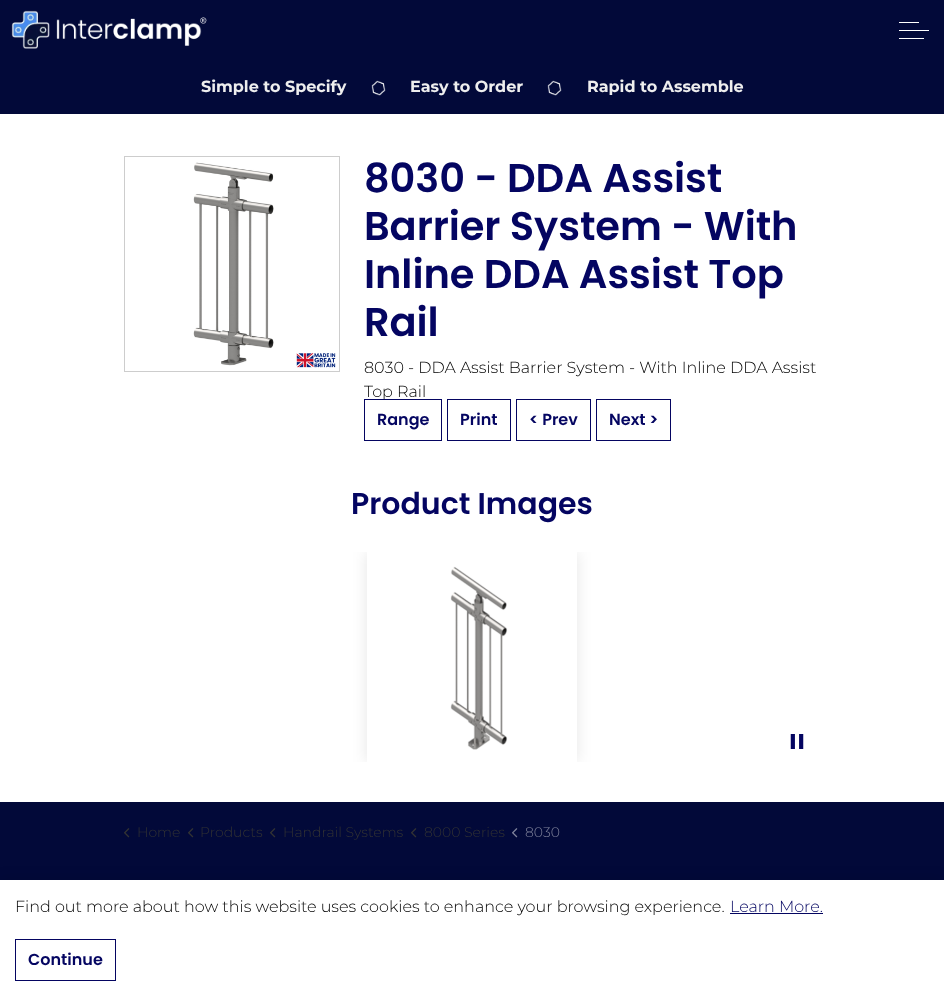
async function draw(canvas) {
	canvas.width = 944;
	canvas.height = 1001;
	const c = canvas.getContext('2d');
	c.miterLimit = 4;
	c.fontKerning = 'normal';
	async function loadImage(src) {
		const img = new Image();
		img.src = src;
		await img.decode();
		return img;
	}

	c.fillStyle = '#fff';
	c.fillRect(0, 0, 944, 1001);
	c.fillStyle = '#020939';
	c.fillRect(0, 0, 944, 114);
	c.drawImage(await loadImage('img1.png'), 11, 10, 196, 39);
	for (const [x, y, w, h, color] of [
		[899, 30, 30, 1, '#fff'],
		[899, 22, 20, 1, '#fff'],
		[899, 38, 25, 1, '#fff'],
	]) {
		c.fillStyle = color;
		c.fillRect(x, y, w, h);
	}
	c.font = 'bold 16px Montserrat';
	c.fillStyle = '#eee';
	c.fillText('Simple to Specify', 201, 92);
	c.drawImage(await loadImage('img2.png'), 371, 80, 15, 16);
	c.fillText('Easy to Order', 410, 92);
	c.drawImage(await loadImage('img2.png'), 547, 80, 15, 16);
	c.fillText('Rapid to Assemble', 587, 92);
	c.strokeStyle = '#cdcdcd';
	c.strokeRect(124.5, 156.5, 215, 215);
	c.drawImage(await loadImage('img3.png'), 193, 162, 143, 206);
	c.letterSpacing = '-0.1px';
	c.font = '600 40px Poppins';
	c.fillStyle = '#040561';
	for (const [text, x, y] of [
		['8030 - DDA Assist', 364, 192],
		['Barrier System - With', 364, 240],
		['Inline DDA Assist Top', 364, 288],
		['Rail', 364, 336],
	]) {
		c.fillText(text, x, y);
	}
	c.letterSpacing = '0px';
	c.font = '300 16px Montserrat';
	c.fillStyle = '#000';
	c.fillText('8030 - DDA Assist Barrier System - With Inline DDA Assist', 364, 373);
	c.fillText('Top Rail', 364, 397);
	c.fillStyle = '#fff';
	c.fillRect(383, 400, 2, 1);
	c.strokeStyle = '#040561';
	c.strokeRect(364.5, 399.5, 77, 41);
	c.font = '600 16px Poppins';
	c.fillStyle = '#040561';
	c.fillText('Range', 377, 425);
	c.strokeRect(447.5, 399.5, 63, 41);
	c.fillText('Print', 460, 425);
	c.strokeRect(516.5, 399.5, 74, 41);
	c.fillText('< Prev', 529, 425);
	c.strokeRect(596.5, 399.5, 74, 41);
	c.fillText('Next >', 609, 425);
	c.font = '600 30px Poppins';
	c.fillText('Product Images', 351, 514);
	c.save();
	c.beginPath();
	c.rect(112, 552, 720, 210);
	c.clip();
	c.beginPath();
	c.moveTo(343, 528);
	c.lineTo(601, 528);
	c.lineTo(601, 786);
	c.lineTo(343, 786);
	c.closePath();
	c.moveTo(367, 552);
	c.lineTo(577, 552);
	c.lineTo(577, 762);
	c.lineTo(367, 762);
	c.closePath();
	c.clip('evenodd');
	c.fillStyle = '#0000001a';
	c.filter = 'blur(7.5px)';
	c.beginPath();
	c.rect(367, 552, 210, 210);
	c.fill();
	c.filter = 'none';
	c.restore();
	c.drawImage(await loadImage('img4.png'), 450, 566, 58, 184);
	c.drawImage(await loadImage('img5.png'), 790, 734, 14, 15);
	c.fillStyle = '#020939';
	c.fillRect(0, 802, 944, 78);
	c.drawImage(await loadImage('img6.png'), 124, 828, 6, 10);
	c.font = '300 14px Montserrat';
	c.fillStyle = '#333';
	c.fillText('Home', 137, 837);
	c.drawImage(await loadImage('img6.png'), 188, 828, 6, 10);
	c.fillText('Products', 200, 837);
	c.drawImage(await loadImage('img6.png'), 270, 828, 6, 10);
	c.fillText('Handrail Systems', 283, 837);
	c.drawImage(await loadImage('img6.png'), 411, 828, 6, 10);
	c.fillText('8000 Series', 424, 837);
	c.drawImage(await loadImage('img7.png'), 512, 828, 6, 10);
	c.fillStyle = '#81849c';
	c.fillText('8030', 525, 837);
	c.fillStyle = '#0000001a';
	c.filter = 'blur(7.5px)';
	c.beginPath();
	c.rect(0, 880, 944, 121);
	c.fill();
	c.filter = 'none';
	c.fillStyle = '#fff';
	c.fillRect(0, 880, 944, 121);
	c.font = '300 16px Montserrat';
	c.fillStyle = '#000';
	c.fillText('Find out more about how this website uses cookies to enhance your browsing experience.', 15, 912);
	c.fillStyle = '#040561';
	c.fillText('Learn More.', 730, 912);
	c.fillRect(730, 913, 93, 1);
	c.strokeRect(15.5, 939.5, 100, 41);
	c.font = '600 16px Poppins';
	c.fillText('Continue', 28, 965);
}

draw(document.querySelector('canvas'));
